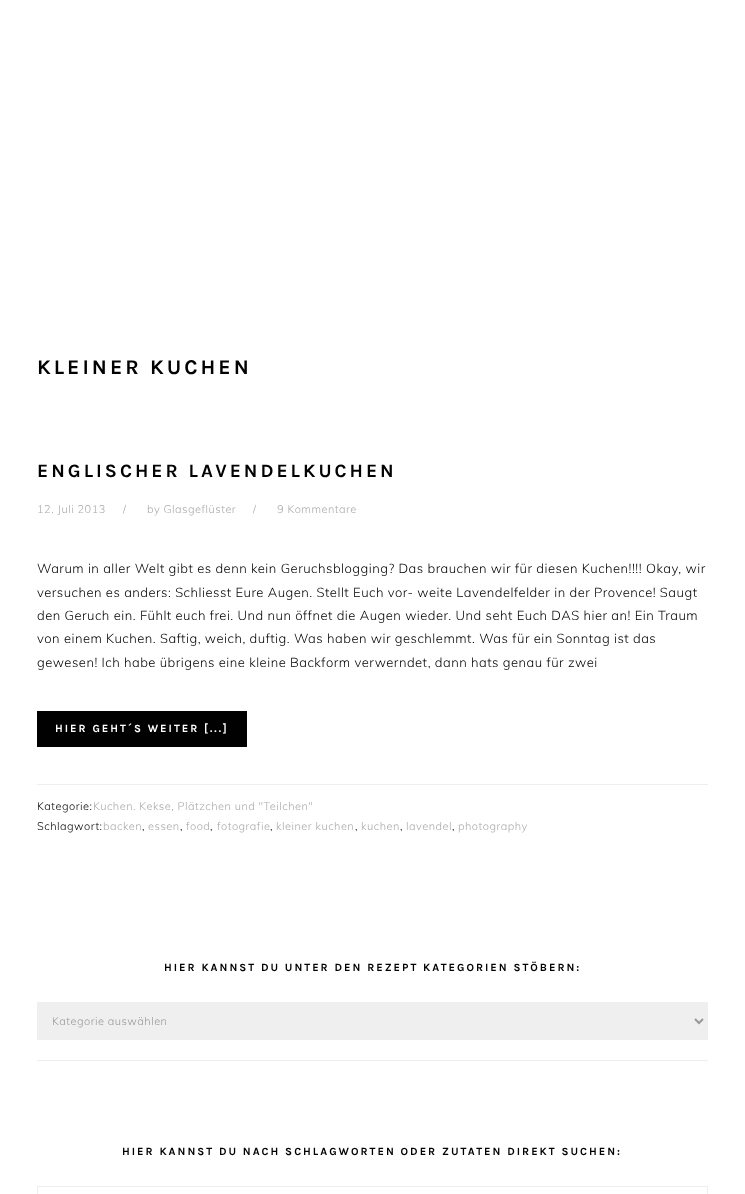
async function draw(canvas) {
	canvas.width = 745;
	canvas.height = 1194;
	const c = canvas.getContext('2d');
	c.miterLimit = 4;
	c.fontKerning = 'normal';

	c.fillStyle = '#fff';
	c.fillRect(0, 0, 745, 1194);
	c.letterSpacing = '3px';
	c.font = 'bold 21px Karla';
	c.fillStyle = '#010101';
	c.fillText('KLEINER KUCHEN', 37, 374);
	c.font = 'bold 19px Karla';
	c.fillText('ENGLISCHER LAVENDELKUCHEN', 37, 477);
	c.letterSpacing = '0.5px';
	c.font = '300 11px Muli';
	c.fillStyle = '#aaa';
	for (const [text, x, y] of [
		['12. Juli 2013', 37, 513],
		['/', 123, 513],
		['by Glasgeflüster', 147, 513],
		['/', 253, 513],
		['9 Kommentare', 277, 513],
	]) {
		c.fillText(text, x, y);
	}
	c.font = '300 13px Muli';
	c.fillStyle = '#010101';
	for (const [text, x, y] of [
		['Warum in aller Welt gibt es denn kein Geruchsblogging? Das brauchen wir für diesen Kuchen!!!! Okay, wir', 37, 573],
		['versuchen es anders: Schliesst Eure Augen. Stellt Euch vor- weite Lavendelfelder in der Provence! Saugt', 37, 597],
		['den Geruch ein. Fühlt euch frei. Und nun öffnet die Augen wieder. Und seht Euch DAS hier an! Ein Traum', 37, 620],
		['von einem Kuchen. Saftig, weich, duftig. Was haben wir geschlemmt. Was für ein Sonntag ist das', 37, 643],
		['gewesen! Ich habe übrigens eine kleine Backform verwerndet, dann hats genau für zwei', 37, 667],
	]) {
		c.fillText(text, x, y);
	}
	c.fillRect(37, 711, 210, 36);
	c.letterSpacing = '2px';
	c.font = 'bold 11px Karla';
	c.fillStyle = '#fff';
	c.fillText('HIER GEHT´S WEITER [...]', 55, 732);
	c.fillStyle = '#eee';
	c.fillRect(37, 784, 671, 1);
	c.letterSpacing = '0.5px';
	c.font = '300 11px Muli';
	c.fillStyle = '#010101';
	c.fillText('Kategorie:', 37, 810);
	c.fillStyle = '#aaa';
	c.fillText('Kuchen. Kekse, Plätzchen und "Teilchen"', 93, 810);
	c.fillStyle = '#010101';
	c.fillText('Schlagwort:', 37, 830);
	c.fillStyle = '#aaa';
	c.fillText('backen', 103, 830);
	c.fillStyle = '#010101';
	c.fillText(',', 142, 830);
	c.fillStyle = '#aaa';
	c.fillText('essen', 148, 830);
	c.fillStyle = '#010101';
	c.fillText(',', 180, 830);
	c.fillStyle = '#aaa';
	c.fillText('food', 186, 830);
	c.fillStyle = '#010101';
	c.fillText(',', 210, 830);
	c.fillStyle = '#aaa';
	c.fillText('fotografie', 217, 830);
	c.fillStyle = '#010101';
	c.fillText(',', 270, 830);
	c.fillStyle = '#aaa';
	c.fillText('kleiner kuchen', 276, 830);
	c.fillStyle = '#010101';
	c.fillText(',', 355, 830);
	c.fillStyle = '#aaa';
	c.fillText('kuchen', 361, 830);
	c.fillStyle = '#010101';
	c.fillText(',', 400, 830);
	c.fillStyle = '#aaa';
	c.fillText('lavendel', 406, 830);
	c.fillStyle = '#010101';
	c.fillText(',', 452, 830);
	c.fillStyle = '#aaa';
	c.fillText('photography', 458, 830);
	c.fillStyle = '#eee';
	c.fillRect(37, 1060, 671, 1);
	c.letterSpacing = '2px';
	c.font = 'bold 11px Karla';
	c.fillStyle = '#010101';
	c.fillText('HIER KANNST DU UNTER DEN REZEPT KATEGORIEN STÖBERN:', 164, 971);
	c.fillStyle = '#efefef';
	c.fillRect(37, 1002, 671, 38);
	c.beginPath();
	c.moveTo(695, 1019);
	c.lineTo(699, 1023);
	c.lineTo(703, 1019);
	c.strokeStyle = '#999';
	c.lineWidth = 2;
	c.stroke();
	c.letterSpacing = '0.5px';
	c.font = '300 11px Muli';
	c.fillStyle = '#999';
	c.fillText('Kategorie auswählen', 52, 1025);
	c.letterSpacing = '2px';
	c.font = 'bold 11px Karla';
	c.fillStyle = '#010101';
	c.fillText('HIER KANNST DU NACH SCHLAGWORTEN ODER ZUTATEN DIREKT SUCHEN:', 122, 1155);
	c.strokeStyle = '#eee';
	c.lineWidth = 1;
	c.strokeRect(37.5, 1186.5, 670, 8);
}

draw(document.querySelector('canvas'));
